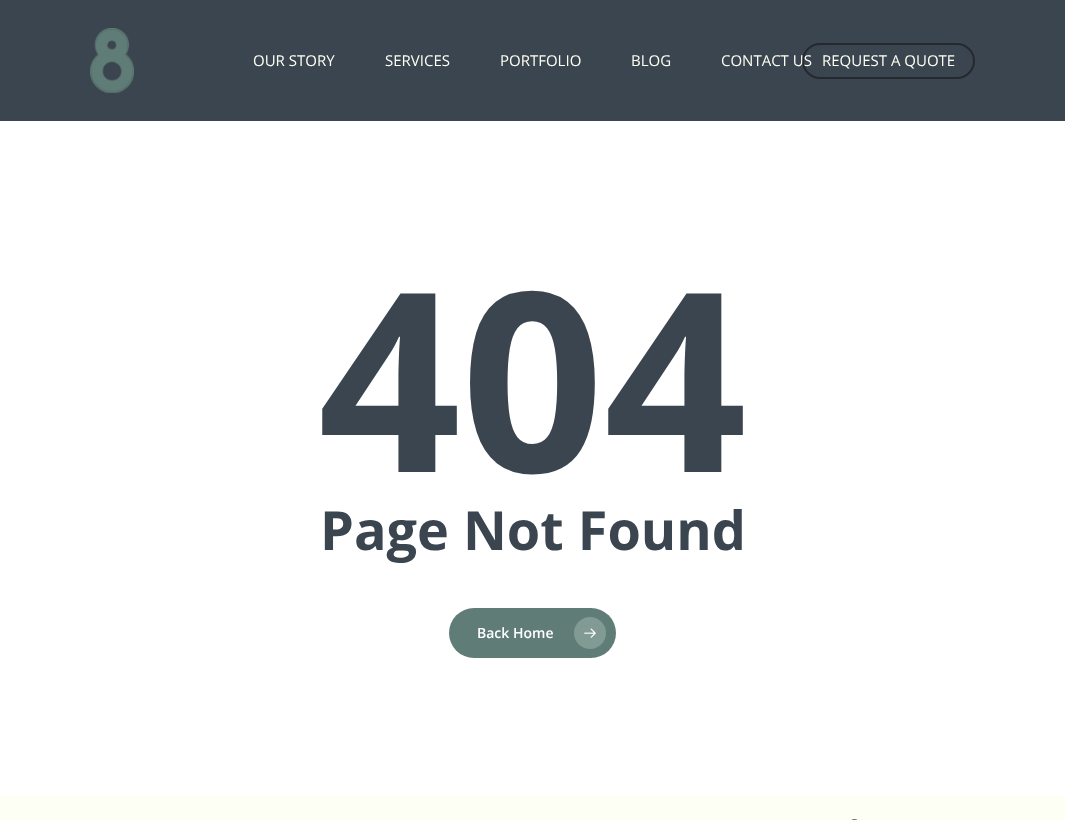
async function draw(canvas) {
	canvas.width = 1065;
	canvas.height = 820;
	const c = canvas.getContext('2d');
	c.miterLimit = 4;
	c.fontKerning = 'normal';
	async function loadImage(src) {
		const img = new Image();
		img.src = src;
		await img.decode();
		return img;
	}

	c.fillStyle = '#fff';
	c.fillRect(0, 0, 1065, 820);
	c.fillStyle = '#3b454f';
	c.fillRect(0, 0, 1065, 121);
	c.drawImage(await loadImage('img1.png'), 90, 28, 44, 65);
	c.font = '15px Open Sans';
	c.fillStyle = '#fefff4';
	for (const [text, x, y] of [
		['OUR STORY', 253, 66],
		['SERVICES', 385, 66],
		['PORTFOLIO', 500, 66],
		['BLOG', 631, 66],
		['CONTACT US', 721, 66],
	]) {
		c.fillText(text, x, y);
	}
	c.beginPath();
	c.roundRect(803, 44, 171, 34, 17);
	c.strokeStyle = '#00000066';
	c.lineWidth = 2;
	c.stroke();
	c.fillText('REQUEST A QUOTE', 822, 66);
	c.font = 'bold 250px Open Sans';
	c.fillStyle = '#3b454f';
	c.fillText('404', 318, 472);
	c.font = 'bold 54px Open Sans';
	c.fillText('Page Not Found', 320, 550);
	c.fillStyle = '#5f7d76';
	c.beginPath();
	c.roundRect(449, 608, 167, 50, 25);
	c.fill();
	c.font = '600 14px Open Sans';
	c.fillStyle = '#fff';
	c.fillText('Back Home', 477, 638);
	c.fillStyle = '#829a94';
	c.beginPath();
	c.arc(590, 633, 16, 0, 2 * Math.PI);
	c.fill();
	c.drawImage(await loadImage('img2.png'), 584, 628, 12, 10);
	c.fillStyle = '#fdfff4';
	c.fillRect(0, 796, 1065, 24);
	c.drawImage(await loadImage('img3.png'), 851, 819, 6, 1);
}

draw(document.querySelector('canvas'));
